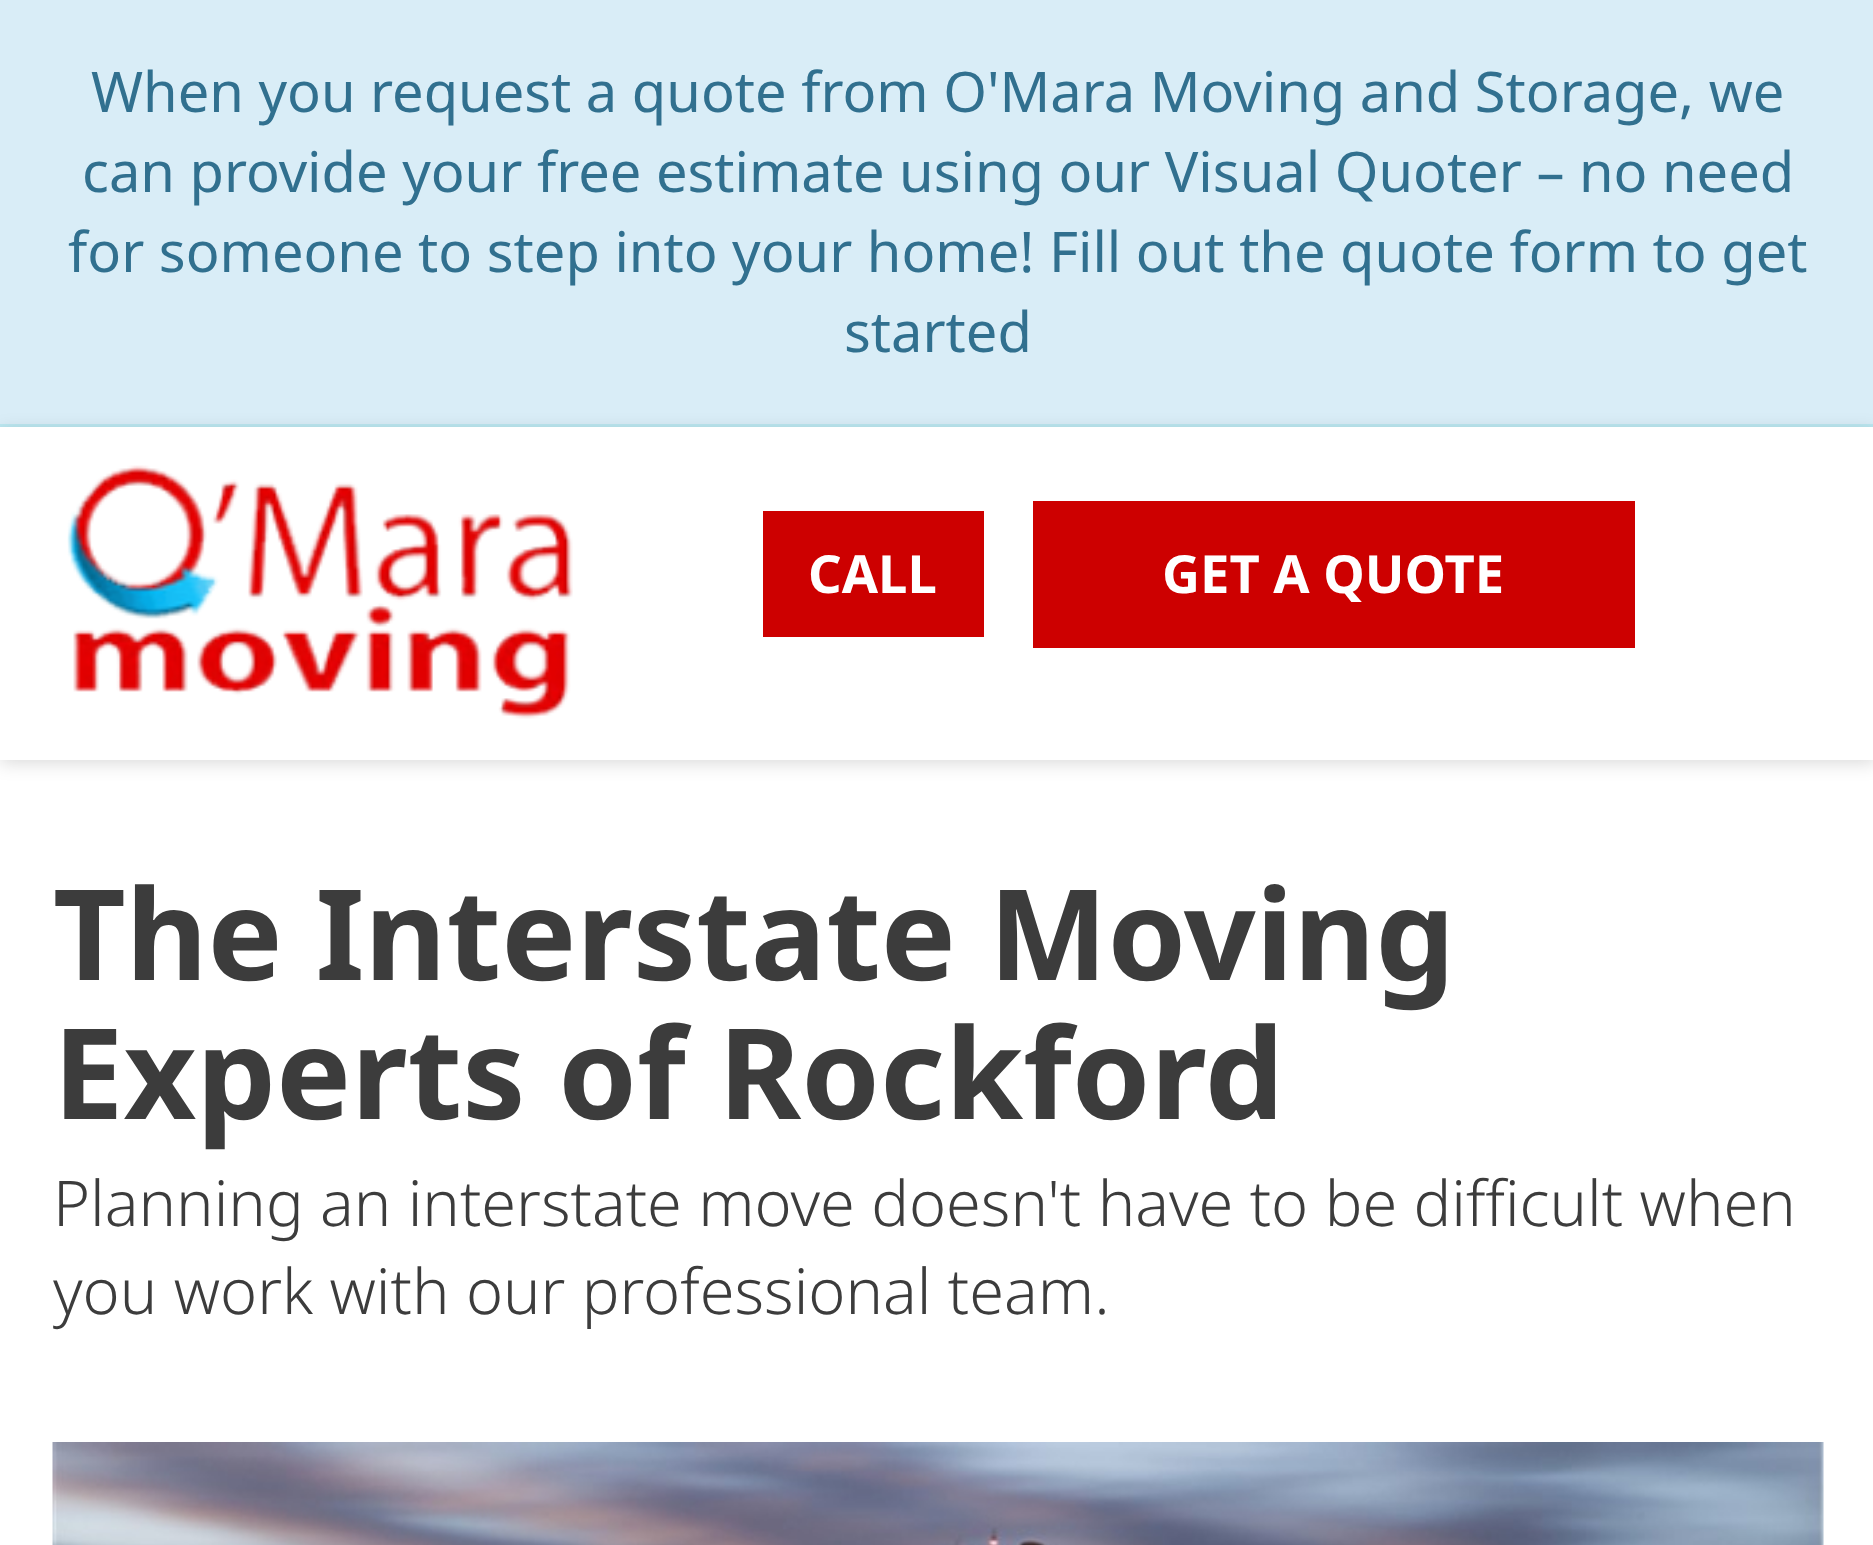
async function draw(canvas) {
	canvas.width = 1873;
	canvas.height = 1545;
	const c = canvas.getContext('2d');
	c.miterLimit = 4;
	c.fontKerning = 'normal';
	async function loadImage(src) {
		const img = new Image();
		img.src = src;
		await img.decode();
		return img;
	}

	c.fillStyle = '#fff';
	c.fillRect(0, 0, 1873, 1545);
	c.fillStyle = '#d9edf7';
	c.fillRect(0, 0, 1873, 424);
	c.fillStyle = '#bce8f1';
	c.fillRect(0, 424, 1873, 3);
	c.font = '56px Noto Sans';
	c.fillStyle = '#31708f';
	for (const [text, x, y] of [
		['When you request a quote from O\'Mara Moving and Storage, we', 91, 112],
		['can provide your free estimate using our Visual Quoter – no need', 82, 192],
		['for someone to step into your home! Fill out the quote form to get', 68, 272],
		['started', 844, 352],
	]) {
		c.fillText(text, x, y);
	}
	c.fillStyle = '#00000026';
	c.filter = 'blur(9px)';
	c.beginPath();
	c.rect(0, 431, 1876, 332);
	c.fill();
	c.filter = 'none';
	c.fillStyle = '#fff';
	c.fillRect(0, 427, 1873, 333);
	c.drawImage(await loadImage('img1.png'), 67, 465, 506, 254);
	c.fillStyle = '#cd0000';
	c.fillRect(763, 511, 221, 126);
	c.font = 'bold 52.5px Noto Sans';
	c.fillStyle = '#fff';
	c.fillText('CALL', 808, 593);
	c.fillStyle = '#cd0000';
	c.fillRect(1033, 501, 602, 147);
	c.fillStyle = '#fff';
	c.fillText('GET A QUOTE', 1162, 593);
	c.font = 'bold 126px Noto Sans';
	c.fillStyle = '#3c3c3c';
	c.fillText('The Interstate Moving', 53, 980);
	c.fillText('Experts of Rockford', 53, 1119);
	c.font = '300 63px Noto Sans';
	c.fillText('Planning an interstate move doesn\'t have to be difficult when', 53, 1226);
	c.fillText('you work with our professional team.', 53, 1314);
	c.drawImage(await loadImage('img2.png'), 52, 1442, 1772, 103);
}

draw(document.querySelector('canvas'));
